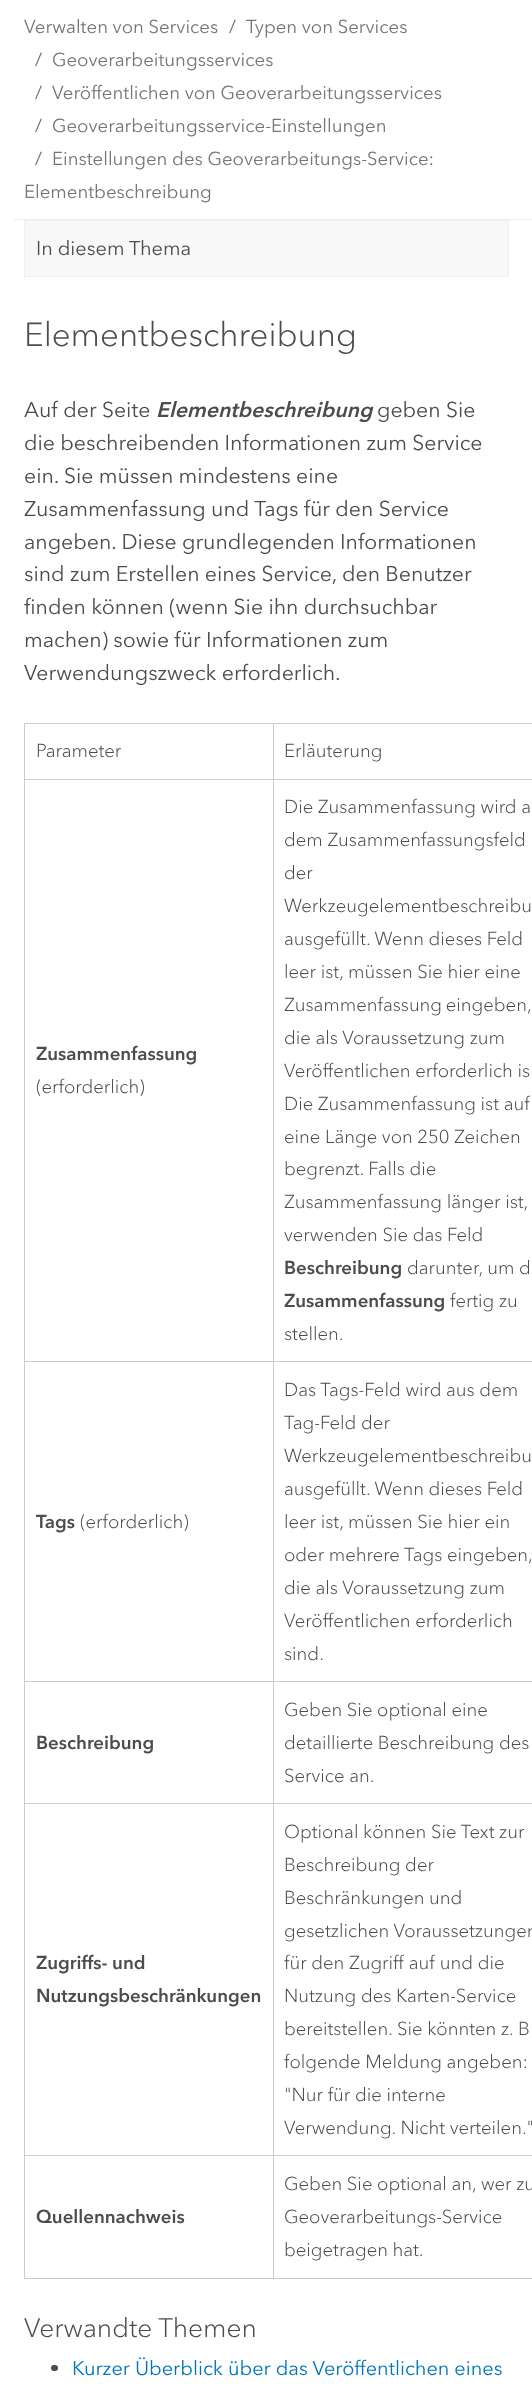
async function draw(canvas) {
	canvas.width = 532;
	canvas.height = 2386;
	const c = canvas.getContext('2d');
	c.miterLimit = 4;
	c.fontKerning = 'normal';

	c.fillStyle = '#fff';
	c.fillRect(0, 0, 532, 2386);
	c.fillStyle = '#ededed';
	c.fillRect(14, 219, 518, 1);
	c.font = '18.6px Avenir Next';
	c.fillStyle = '#757575';
	c.fillText('Verwalten von Services', 24, 33);
	c.fillStyle = '#6e6e6e';
	c.fillText('/', 229, 33);
	c.fillStyle = '#757575';
	c.fillText('Typen von Services', 246, 33);
	c.fillStyle = '#6e6e6e';
	c.fillText('/', 35, 66);
	c.fillStyle = '#757575';
	c.fillText('Geoverarbeitungsservices', 52, 66);
	c.fillStyle = '#6e6e6e';
	c.fillText('/', 35, 99);
	c.fillStyle = '#757575';
	c.fillText('Veröffentlichen von Geoverarbeitungsservices', 52, 99);
	c.fillStyle = '#6e6e6e';
	c.fillText('/', 35, 132);
	c.fillStyle = '#757575';
	c.fillText('Geoverarbeitungsservice-Einstellungen', 52, 132);
	c.fillStyle = '#6e6e6e';
	c.fillText('/', 35, 165);
	c.fillStyle = '#757575';
	c.fillText('Einstellungen des Geoverarbeitungs-Service:', 52, 165);
	c.fillText('Elementbeschreibung', 24, 198);
	for (const [x, y, w, h, color] of [
		[508, 220, 1, 58, '#efefef'],
		[24, 276, 485, 1, '#efefef'],
		[24, 220, 1, 58, '#efefef'],
		[25, 221, 483, 55, '#f8f8f8'],
		[25, 220, 483, 1, '#efefef'],
	]) {
		c.fillStyle = color;
		c.fillRect(x, y, w, h);
	}
	c.font = '19.9px Avenir Next';
	c.fillStyle = '#4c4c4c';
	c.fillText('In diesem Thema', 36, 255);
	c.font = '300 33.25px Avenir Next';
	c.fillText('Elementbeschreibung', 24, 346);
	c.font = '21.25px Avenir Next';
	c.fillText('Auf der Seite', 24, 417);
	c.font = 'italic bold 21.25px Avenir Next';
	c.fillText('Elementbeschreibung', 156, 417);
	c.font = '21.25px Avenir Next';
	for (const [text, x, y] of [
		['geben Sie', 377, 417],
		['die beschreibenden Informationen zum Service', 24, 450],
		['ein. Sie müssen mindestens eine', 24, 483],
		['Zusammenfassung und Tags für den Service', 24, 516],
		['angeben. Diese grundlegenden Informationen', 24, 549],
		['sind zum Erstellen eines Service, den Benutzer', 24, 581],
		['finden können (wenn Sie ihn durchsuchbar', 24, 614],
		['machen) sowie für Informationen zum', 24, 647],
		['Verwendungszweck erforderlich.', 24, 680],
	]) {
		c.fillText(text, x, y);
	}
	for (const [x, y, w, h, color] of [
		[24, 723, 508, 1, '#ccc'],
		[24, 2278, 508, 1, '#ccc'],
		[24, 723, 1, 1556, '#ccc'],
		[24, 779, 508, 1, '#ccc'],
	]) {
		c.fillStyle = color;
		c.fillRect(x, y, w, h);
	}
	c.font = '300 18.6px Avenir Next';
	c.fillStyle = '#4c4c4c';
	c.fillText('Parameter', 36, 757);
	c.fillText('Erläuterung', 284, 757);
	c.fillStyle = '#ccc';
	c.fillRect(24, 1361, 508, 1);
	c.font = 'bold 18.6px Avenir Next';
	c.fillStyle = '#4c4c4c';
	c.fillText('Zusammenfassung', 36, 1060);
	c.font = '300 18.6px Avenir Next';
	for (const [text, x, y] of [
		['(erforderlich)', 36, 1093],
		['Die Zusammenfassung wird a', 284, 813],
		['dem Zusammenfassungsfeld', 284, 846],
		['der', 284, 879],
		['Werkzeugelementbeschreibu', 284, 912],
		['ausgefüllt. Wenn dieses Feld', 284, 945],
		['leer ist, müssen Sie hier eine', 284, 978],
	]) {
		c.fillText(text, x, y);
	}
	c.wordSpacing = '-1px';
	c.fillText('Zusammenfassung eingeben,', 284, 1011);
	c.wordSpacing = '0px';
	for (const [text, x, y] of [
		['die als Voraussetzung zum', 284, 1044],
		['Veröffentlichen erforderlich is', 284, 1077],
		['Die Zusammenfassung ist auf', 284, 1110],
		['eine Länge von 250 Zeichen', 284, 1143],
		['begrenzt. Falls die', 284, 1175],
		['Zusammenfassung länger ist,', 284, 1208],
		['verwenden Sie das Feld', 284, 1241],
	]) {
		c.fillText(text, x, y);
	}
	c.font = 'bold 18.6px Avenir Next';
	c.fillText('Beschreibung', 284, 1274);
	c.font = '300 18.6px Avenir Next';
	c.fillText('darunter, um d', 407, 1274);
	c.font = 'bold 18.6px Avenir Next';
	c.fillText('Zusammenfassung', 284, 1307);
	c.font = '300 18.6px Avenir Next';
	c.fillText('fertig zu', 450, 1307);
	c.fillText('stellen.', 284, 1340);
	c.fillStyle = '#ccc';
	c.fillRect(24, 1681, 508, 1);
	c.font = 'bold 18.6px Avenir Next';
	c.fillStyle = '#4c4c4c';
	c.fillText('Tags', 36, 1528);
	c.font = '300 18.6px Avenir Next';
	for (const [text, x, y] of [
		['(erforderlich)', 80, 1528],
		['Das Tags-Feld wird aus dem', 284, 1396],
		['Tag-Feld der', 284, 1429],
		['Werkzeugelementbeschreibu', 284, 1462],
		['ausgefüllt. Wenn dieses Feld', 284, 1495],
		['leer ist, müssen Sie hier ein', 284, 1528],
		['oder mehrere Tags eingeben,', 284, 1561],
		['die als Voraussetzung zum', 284, 1594],
		['Veröffentlichen erforderlich', 284, 1627],
		['sind.', 284, 1660],
	]) {
		c.fillText(text, x, y);
	}
	c.fillStyle = '#ccc';
	c.fillRect(24, 1803, 508, 1);
	c.font = 'bold 18.6px Avenir Next';
	c.fillStyle = '#4c4c4c';
	c.fillText('Beschreibung', 36, 1749);
	c.font = '300 18.6px Avenir Next';
	for (const [text, x, y] of [
		['Geben Sie optional eine', 284, 1716],
		['detaillierte Beschreibung des', 284, 1749],
		['Service an.', 284, 1782],
	]) {
		c.fillText(text, x, y);
	}
	c.fillStyle = '#ccc';
	c.fillRect(24, 2155, 508, 1);
	c.font = 'bold 18.6px Avenir Next';
	c.fillStyle = '#4c4c4c';
	c.fillText('Zugriffs- und', 36, 1969);
	c.fillText('Nutzungsbeschränkungen', 36, 2002);
	c.font = '300 18.6px Avenir Next';
	for (const [text, x, y] of [
		['Optional können Sie Text zur', 284, 1838],
		['Beschreibung der', 284, 1871],
		['Beschränkungen und', 284, 1904],
		['gesetzlichen Voraussetzungen', 284, 1937],
		['für den Zugriff auf und die', 284, 1969],
		['Nutzung des Karten-Service', 284, 2002],
		['bereitstellen. Sie könnten z. B', 284, 2035],
		['folgende Meldung angeben:', 284, 2068],
		['"Nur für die interne', 284, 2101],
		['Verwendung. Nicht verteilen."', 284, 2134],
	]) {
		c.fillText(text, x, y);
	}
	c.font = 'bold 18.6px Avenir Next';
	c.fillText('Quellennachweis', 36, 2223);
	c.fillStyle = '#ccc';
	c.fillRect(273, 723, 1, 1556);
	c.font = '300 18.6px Avenir Next';
	c.fillStyle = '#4c4c4c';
	for (const [text, x, y] of [
		['Geben Sie optional an, wer zu', 284, 2190],
		['Geoverarbeitungs-Service', 284, 2223],
		['beigetragen hat.', 284, 2256],
	]) {
		c.fillText(text, x, y);
	}
	c.font = '300 26.5px Avenir Next';
	c.fillText('Verwandte Themen', 24, 2337);
	c.beginPath();
	c.roundRect(51, 2365, 7, 6, 3);
	c.fill();
	c.font = '19.9px Avenir Next';
	c.fillStyle = '#0076bc';
	c.fillText('Kurzer Überblick über das Veröffentlichen eines', 72, 2375);
}

draw(document.querySelector('canvas'));
